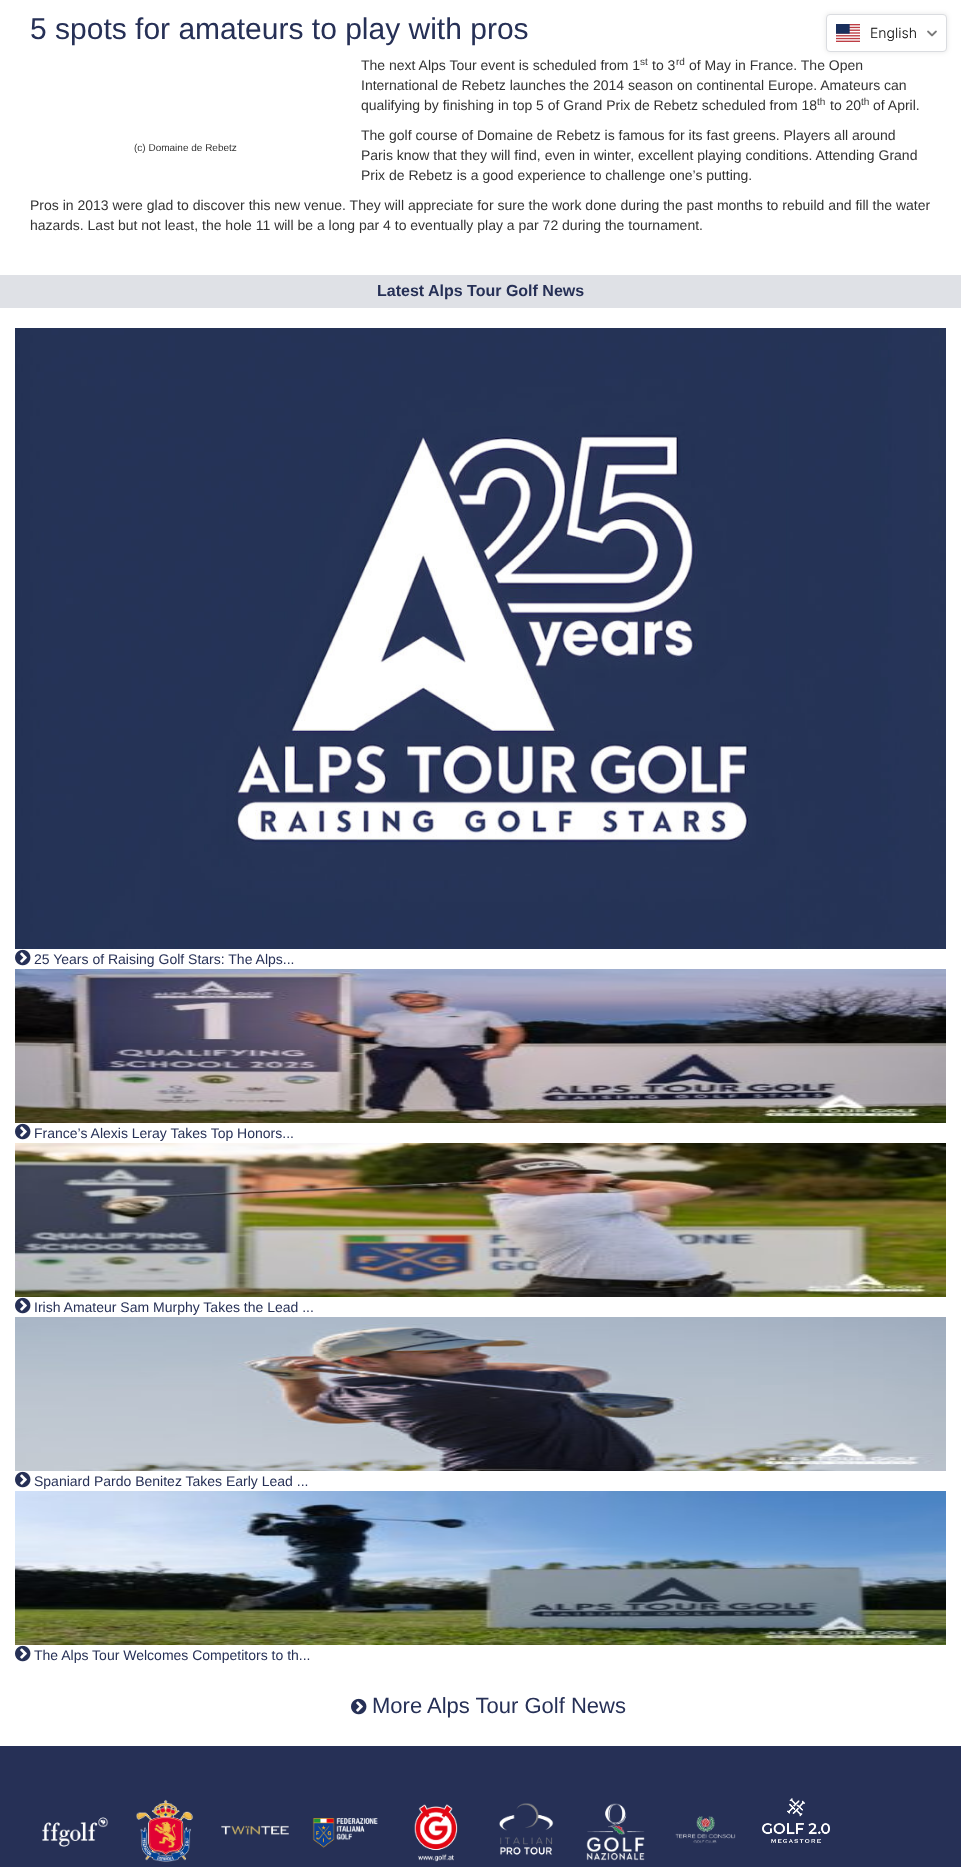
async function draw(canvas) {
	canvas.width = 961;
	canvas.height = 1867;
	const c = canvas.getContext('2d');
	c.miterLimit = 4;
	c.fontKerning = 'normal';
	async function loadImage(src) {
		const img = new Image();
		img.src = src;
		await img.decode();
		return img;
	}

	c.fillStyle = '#fff';
	c.fillRect(0, 0, 961, 1867);
	c.font = '30px Liberation Sans';
	c.fillStyle = '#263056';
	c.fillText('5 spots for amateurs to play with pros', 30, 39);
	c.font = '14px Liberation Sans';
	c.fillStyle = '#333';
	c.fillText('The next Alps Tour event is scheduled from 1', 361, 70);
	c.font = '10px Liberation Sans';
	c.fillText('st', 640, 65);
	c.font = '14px Liberation Sans';
	c.fillText('to 3', 652, 70);
	c.font = '10px Liberation Sans';
	c.fillText('rd', 676, 65);
	c.font = '14px Liberation Sans';
	for (const [text, x, y] of [
		['of May in France. The Open', 689, 70],
		['International de Rebetz launches the 2014 season on continental Europe. Amateurs can', 361, 90],
		['qualifying by finishing in top 5 of Grand Prix de Rebetz scheduled from 18', 361, 110],
	]) {
		c.fillText(text, x, y);
	}
	c.font = '10px Liberation Sans';
	c.fillText('th', 817, 105);
	c.font = '14px Liberation Sans';
	c.fillText('to 20', 830, 110);
	c.font = '10px Liberation Sans';
	c.fillText('th', 861, 105);
	c.font = '14px Liberation Sans';
	c.fillText('of April.', 873, 110);
	c.font = '10px Liberation Sans';
	c.fillText('(c) Domaine de Rebetz', 134, 151);
	c.font = '14px Liberation Sans';
	for (const [text, x, y] of [
		['The golf course of Domaine de Rebetz is famous for its fast greens. Players all around', 361, 140],
		['Paris know that they will find, even in winter, excellent playing conditions. Attending Grand', 361, 160],
		['Prix de Rebetz is a good experience to challenge one’s putting.', 361, 180],
		['Pros in 2013 were glad to discover this new venue. They will appreciate for sure the work done during the past months to rebuild and fill the water', 30, 210],
		['hazards. Last but not least, the hole 11 will be a long par 4 to eventually play a par 72 during the tournament.', 30, 230],
	]) {
		c.fillText(text, x, y);
	}
	c.fillStyle = '#5d5d5d1a';
	c.filter = 'blur(2px)';
	c.beginPath();
	c.roundRect(825, 13, 123, 40, 5);
	c.fill();
	c.filter = 'none';
	c.fillStyle = '#fff';
	c.beginPath();
	c.roundRect(826.5, 14.5, 120, 37, 3.5);
	c.fill();
	c.strokeStyle = '#dadce0';
	c.stroke();
	c.drawImage(await loadImage('img1.png'), 836, 24, 24, 18);
	c.font = '300 14px Inter';
	c.fillStyle = '#000';
	c.fillText('English', 870, 38);
	c.drawImage(await loadImage('img2.png'), 927, 30, 10, 7);
	c.fillStyle = '#dfe1e6';
	c.fillRect(0, 275, 961, 33);
	c.font = 'bold 16px Liberation Sans';
	c.fillStyle = '#263056';
	c.fillText('Latest Alps Tour Golf News', 377, 296);
	c.drawImage(await loadImage('img3.png'), 15, 328, 931, 621);
	c.drawImage(await loadImage('img4.png'), 15, 949, 16, 17);
	c.font = '14px Liberation Sans';
	c.fillText('25 Years of Raising Golf Stars: The Alps...', 34, 964);
	c.drawImage(await loadImage('img5.png'), 15, 969, 931, 154);
	c.drawImage(await loadImage('img4.png'), 15, 1123, 16, 17);
	c.fillText('France’s Alexis Leray Takes Top Honors...', 34, 1138);
	c.drawImage(await loadImage('img6.png'), 15, 1143, 931, 154);
	c.drawImage(await loadImage('img4.png'), 15, 1297, 16, 17);
	c.fillText('Irish Amateur Sam Murphy Takes the Lead ...', 34, 1312);
	c.drawImage(await loadImage('img7.png'), 15, 1317, 931, 154);
	c.drawImage(await loadImage('img4.png'), 15, 1471, 16, 17);
	c.fillText('Spaniard Pardo Benitez Takes Early Lead ...', 34, 1486);
	c.drawImage(await loadImage('img8.png'), 15, 1491, 931, 154);
	c.drawImage(await loadImage('img4.png'), 15, 1645, 16, 17);
	c.fillText('The Alps Tour Welcomes Competitors to th...', 34, 1660);
	c.drawImage(await loadImage('img4.png'), 351, 1698, 16, 17);
	c.font = '22px Liberation Sans';
	c.fillText('More Alps Tour Golf News', 372, 1713);
	c.fillRect(0, 1746, 961, 121);
	c.drawImage(await loadImage('img9.png'), 42, 1817, 67, 30);
	c.drawImage(await loadImage('img10.png'), 136, 1799, 58, 63);
	c.drawImage(await loadImage('img11.png'), 221, 1825, 68, 10);
	c.drawImage(await loadImage('img12.png'), 312, 1818, 66, 30);
	c.drawImage(await loadImage('img13.png'), 414, 1804, 44, 58);
	c.drawImage(await loadImage('img14.png'), 499, 1803, 55, 52);
	c.drawImage(await loadImage('img15.png'), 586, 1803, 59, 58);
	c.drawImage(await loadImage('img16.png'), 675, 1816, 61, 28);
	c.drawImage(await loadImage('img17.png'), 762, 1798, 68, 45);
}

draw(document.querySelector('canvas'));
